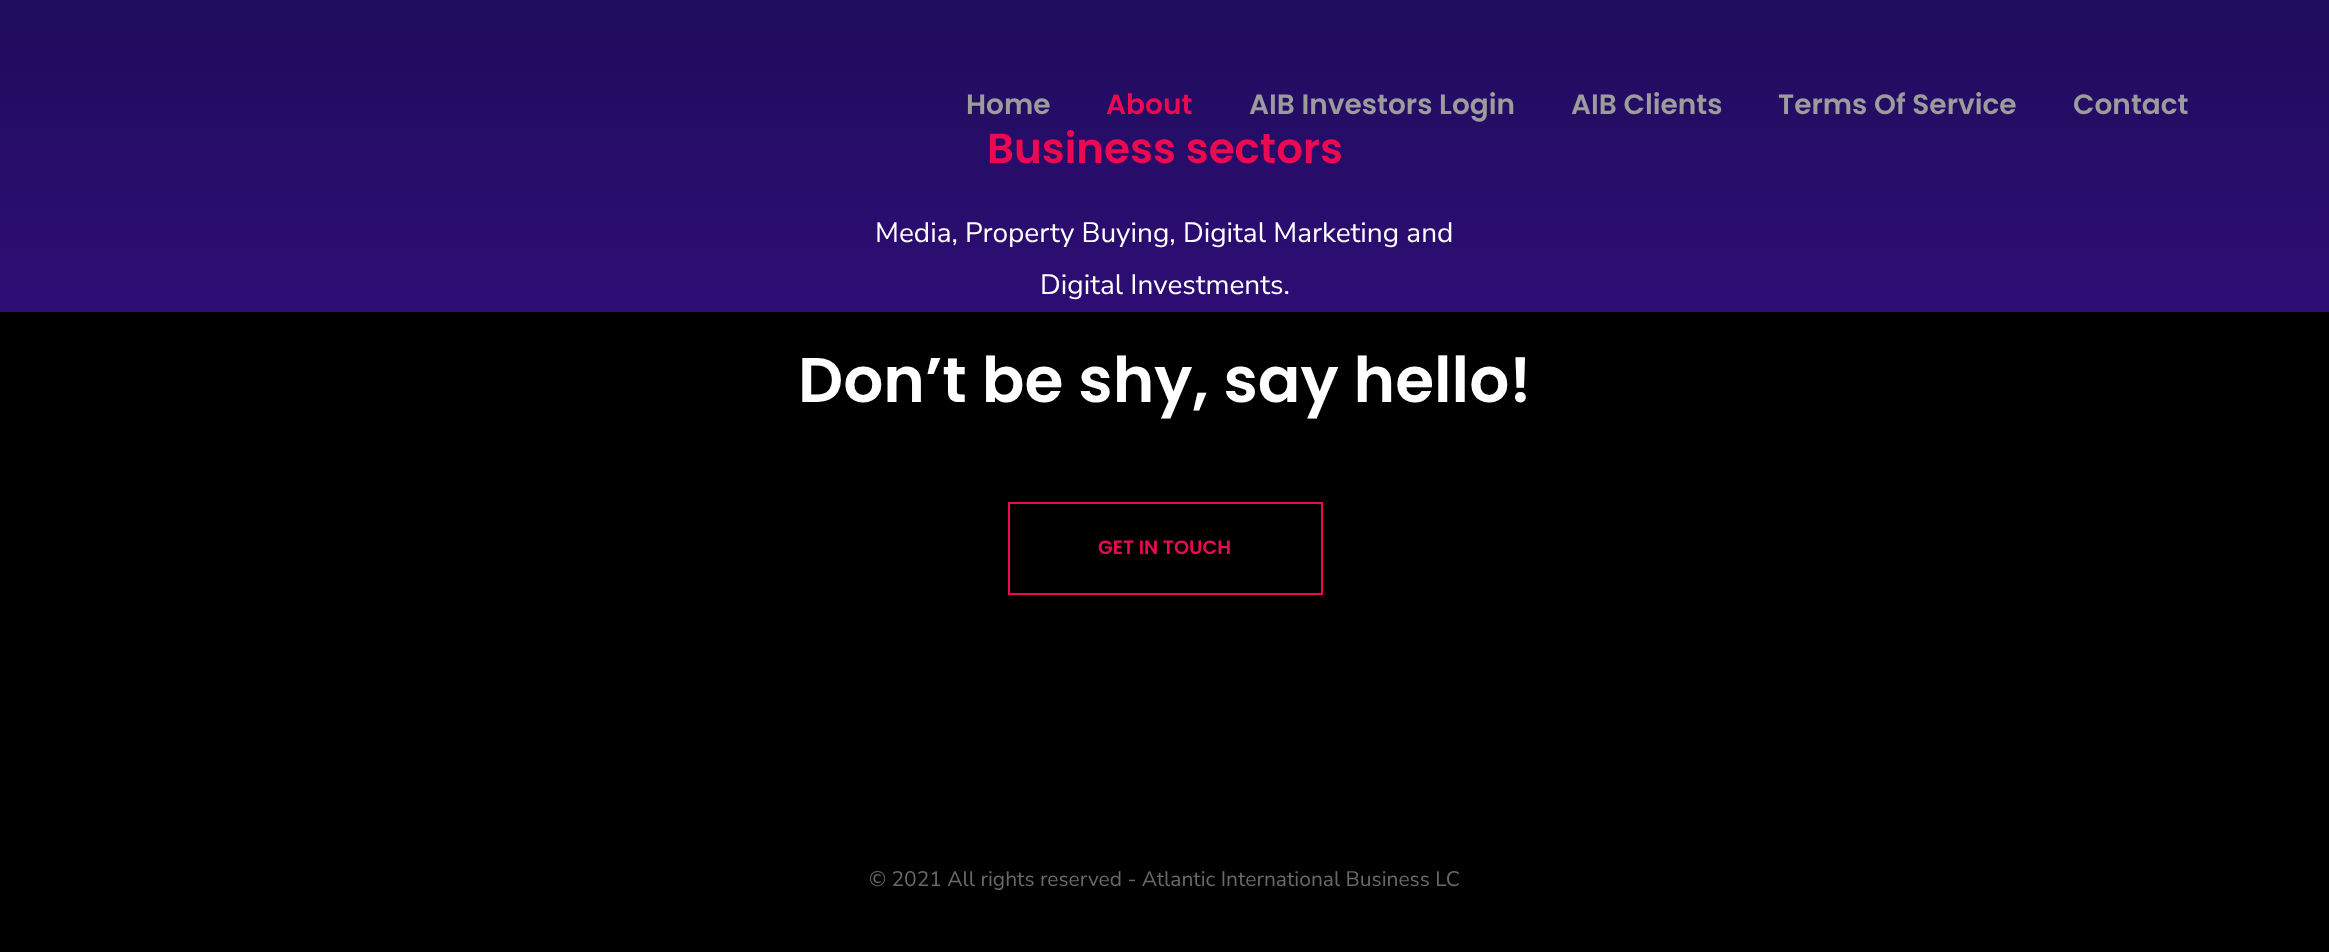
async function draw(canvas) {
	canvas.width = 2329;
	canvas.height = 952;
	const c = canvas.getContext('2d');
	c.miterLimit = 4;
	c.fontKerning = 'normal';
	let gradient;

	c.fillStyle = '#000';
	c.fillRect(0, 0, 2329, 952);
	gradient = c.createLinearGradient(1165, -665, 1165, 312);
	gradient.addColorStop(0, '#000b2b');
	gradient.addColorStop(1, '#2e0d74');
	c.fillStyle = gradient;
	c.fillRect(0, 0, 2329, 312);
	c.font = '600 28px Poppins';
	c.fillStyle = '#9c9c9c';
	c.fillText('Home', 966, 114);
	c.fillStyle = '#ed0952';
	c.fillText('About', 1106, 114);
	c.fillStyle = '#9c9c9c';
	for (const [text, x, y] of [
		['AIB Investors Login', 1249, 114],
		['AIB Clients', 1571, 114],
		['Terms Of Service', 1778, 114],
		['Contact', 2073, 114],
	]) {
		c.fillText(text, x, y);
	}
	c.font = '600 42px Poppins';
	c.fillStyle = '#ed0952';
	c.fillText('Business sectors', 987, 163);
	c.font = '200 28px Nunito Sans';
	c.fillStyle = '#fff';
	c.fillText('Media, Property Buying, Digital Marketing and', 875, 242);
	c.fillText('Digital Investments.', 1040, 294);
	c.font = '600 63px Poppins';
	c.fillText('Don’t be shy, say hello!', 798, 402);
	c.strokeStyle = '#ed0952';
	c.lineWidth = 2;
	c.strokeRect(1009, 503, 313, 91);
	c.font = '600 19.25px Poppins';
	c.fillStyle = '#ed0952';
	c.fillText('GET IN TOUCH', 1098, 554);
	c.font = '200 21px Nunito Sans';
	c.fillStyle = '#696969';
	c.fillText('© 2021 All rights reserved - Atlantic International Business LC', 869, 886);
}

draw(document.querySelector('canvas'));
